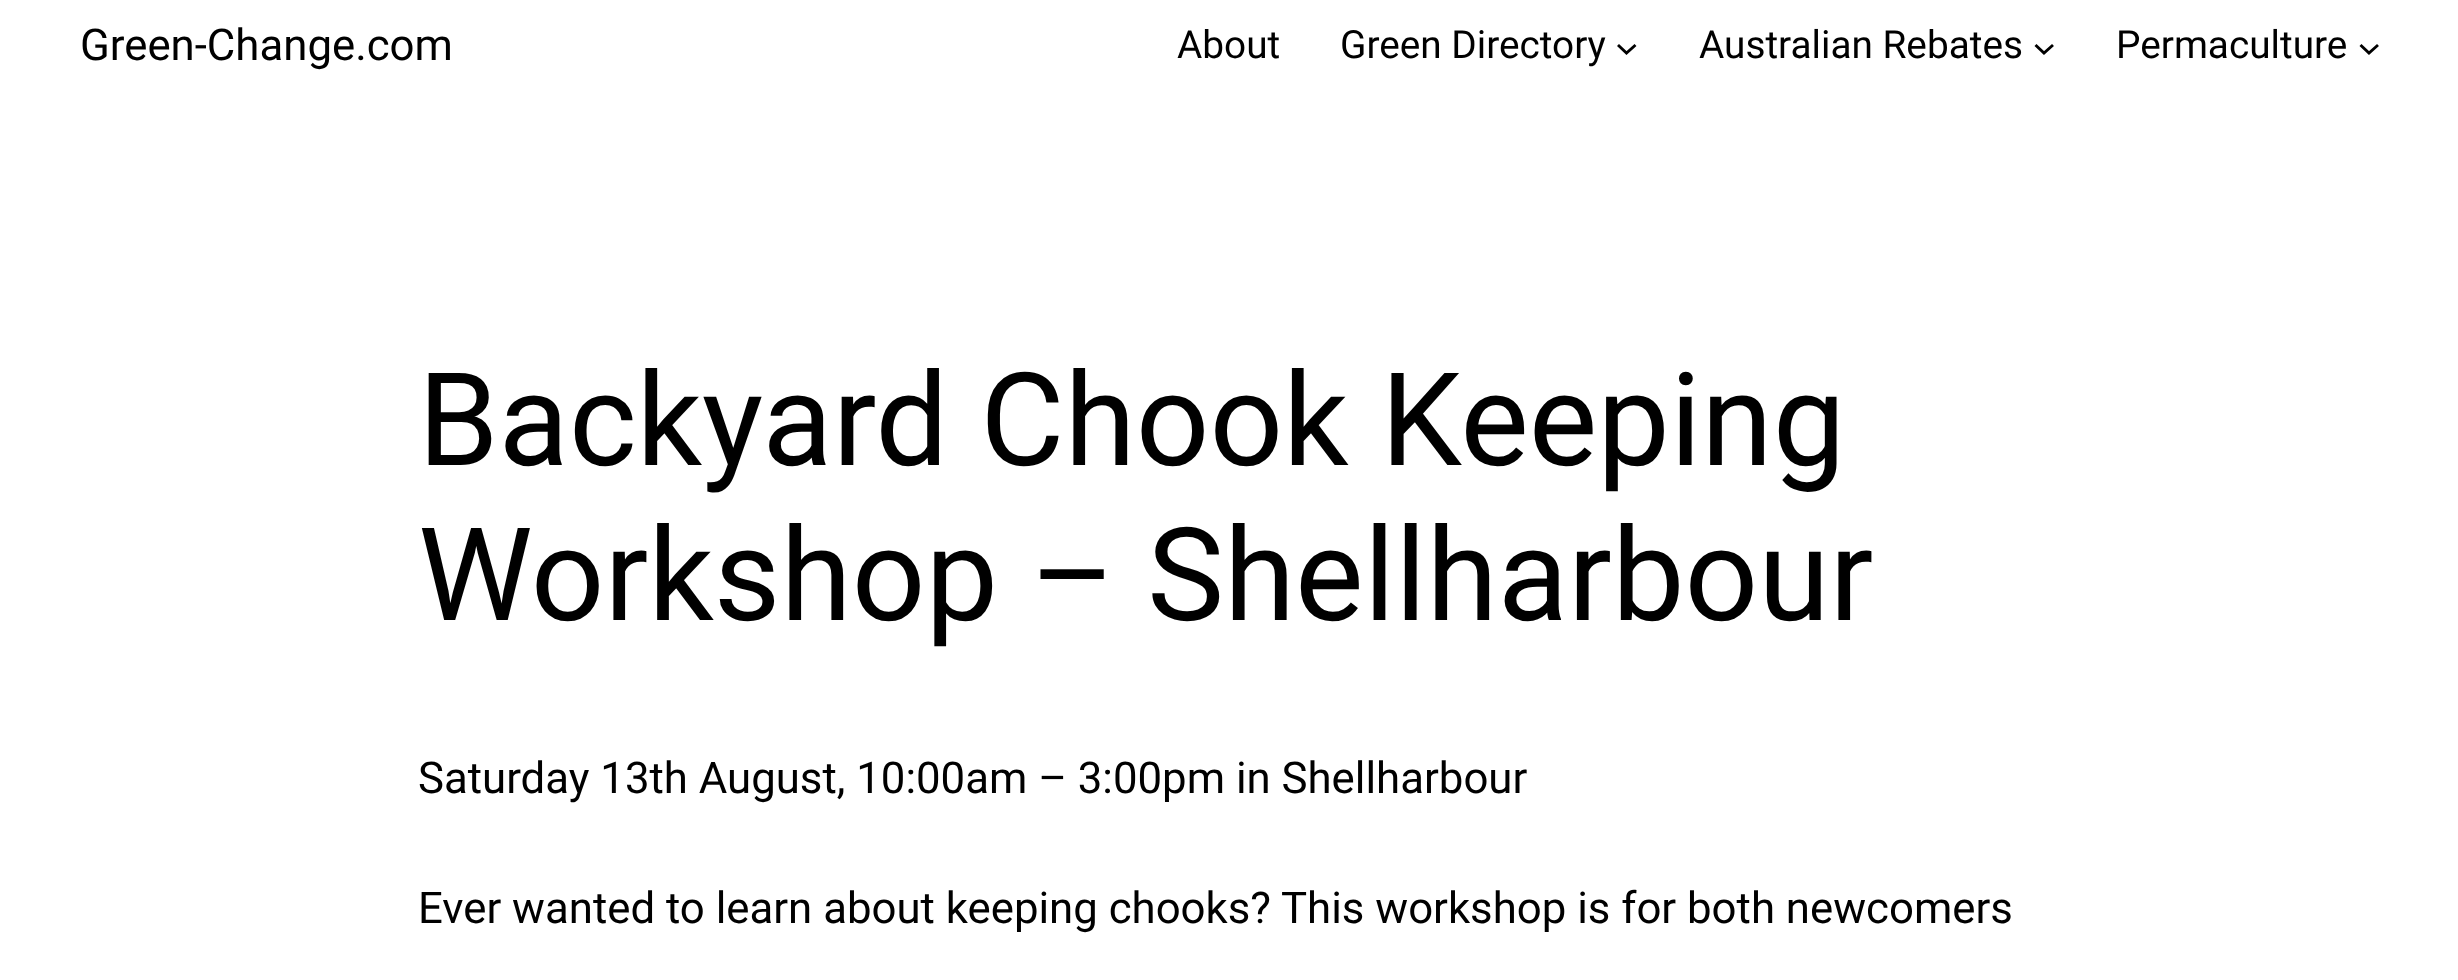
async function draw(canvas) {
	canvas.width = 2458;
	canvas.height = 980;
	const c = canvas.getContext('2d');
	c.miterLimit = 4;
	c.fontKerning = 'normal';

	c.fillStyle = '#fff';
	c.fillRect(0, 0, 2458, 980);
	c.font = '43.75px Roboto';
	c.fillStyle = '#000';
	c.fillText('Green-Change.com', 80, 60);
	c.font = '38.75px Roboto';
	c.fillText('About', 1177, 58);
	c.fillText('Green Directory', 1340, 58);
	c.beginPath();
	c.moveTo(1618, 45);
	c.lineTo(1626.5, 53);
	c.lineTo(1635.5, 45);
	c.strokeStyle = '#000';
	c.lineWidth = 2.9;
	c.stroke();
	c.fillText('Australian Rebates', 1699, 58);
	c.beginPath();
	c.moveTo(2035.5, 45);
	c.lineTo(2044, 53);
	c.lineTo(2053, 45);
	c.stroke();
	c.fillText('Permaculture', 2116, 58);
	c.beginPath();
	c.moveTo(2360.5, 45);
	c.lineTo(2369, 53);
	c.lineTo(2378, 45);
	c.stroke();
	c.font = '129.3px Roboto';
	c.fillText('Backyard Chook Keeping', 418, 465);
	c.fillText('Workshop – Shellharbour', 418, 620);
	c.font = '43.75px Roboto';
	c.fillText('Saturday 13th August, 10:00am – 3:00pm in Shellharbour', 418, 793);
	c.fillText('Ever wanted to learn about keeping chooks? This workshop is for both newcomers', 418, 923);
}

draw(document.querySelector('canvas'));
